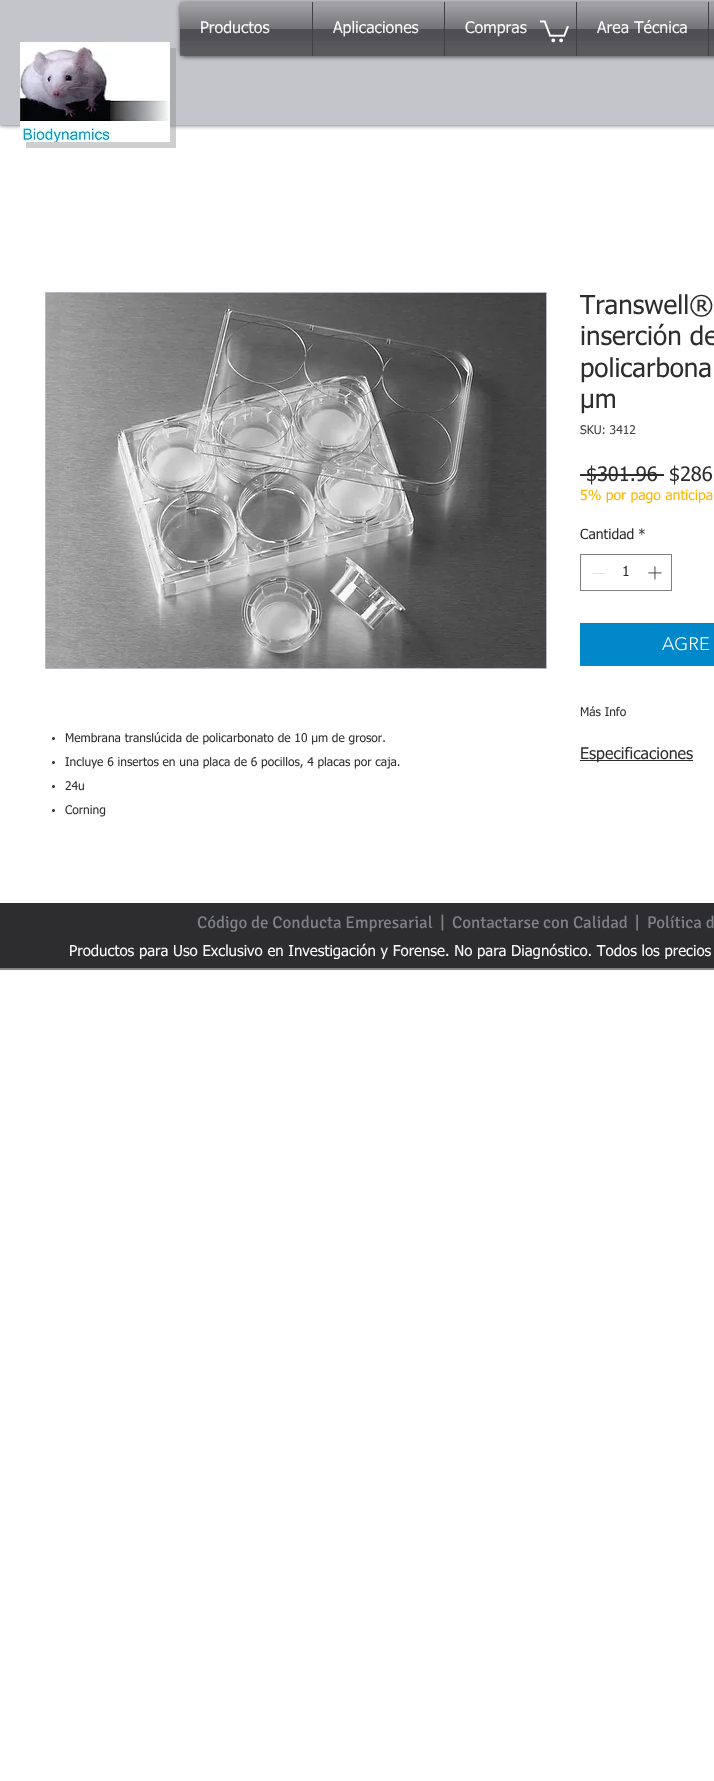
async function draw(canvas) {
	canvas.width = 714;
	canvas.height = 1781;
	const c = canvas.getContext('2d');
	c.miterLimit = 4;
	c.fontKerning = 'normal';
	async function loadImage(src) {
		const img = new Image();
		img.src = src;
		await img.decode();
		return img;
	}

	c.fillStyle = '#fff';
	c.fillRect(0, 0, 714, 1781);
	c.fillStyle = '#000000b3';
	c.filter = 'blur(2.5px)';
	c.beginPath();
	c.rect(0, 0, 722, 125);
	c.fill();
	c.filter = 'none';
	c.fillStyle = '#c3c5ca';
	c.fillRect(0, 0, 714, 125);
	c.save();
	c.beginPath();
	c.moveTo(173, 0);
	c.lineTo(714, 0);
	c.lineTo(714, 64);
	c.lineTo(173, 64);
	c.closePath();
	c.moveTo(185, 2);
	c.lineTo(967, 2);
	c.bezierCurveTo(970, 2, 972, 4, 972, 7);
	c.lineTo(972, 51);
	c.bezierCurveTo(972, 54, 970, 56, 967, 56);
	c.lineTo(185, 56);
	c.bezierCurveTo(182, 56, 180, 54, 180, 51);
	c.lineTo(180, 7);
	c.bezierCurveTo(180, 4, 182, 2, 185, 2);
	c.closePath();
	c.clip('evenodd');
	c.fillStyle = '#00000099';
	c.filter = 'blur(2px)';
	c.beginPath();
	c.roundRect(180, 3, 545, 54, 5);
	c.fill();
	c.filter = 'none';
	c.restore();
	c.fillStyle = '#4041448f';
	c.beginPath();
	c.roundRect(180, 2, 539, 54, 5);
	c.fill();
	c.drawImage(await loadImage('img1.png'), 180, 2, 534, 44);
	c.fillRect(180, 2, 132, 54);
	c.font = '16px tahoma';
	c.fillStyle = '#fff';
	c.fillText('Productos', 200, 33);
	c.drawImage(await loadImage('img2.png'), 180, 2, 132, 39);
	c.fillStyle = '#4041448f';
	c.fillRect(313, 2, 131, 54);
	c.fillStyle = '#404144';
	c.fillRect(312, 2, 1, 54);
	c.fillStyle = '#fff';
	c.fillText('Aplicaciones', 333, 33);
	c.drawImage(await loadImage('img3.png'), 313, 2, 131, 39);
	c.fillStyle = '#4041448f';
	c.fillRect(445, 2, 131, 54);
	c.fillStyle = '#404144';
	c.fillRect(444, 2, 1, 54);
	c.fillStyle = '#fff';
	c.fillText('Compras', 465, 33);
	c.drawImage(await loadImage('img4.png'), 445, 2, 131, 39);
	c.fillStyle = '#4041448f';
	c.fillRect(577, 2, 131, 54);
	c.fillStyle = '#404144';
	c.fillRect(576, 2, 1, 54);
	c.fillStyle = '#fff';
	c.fillText('Area Técnica', 597, 33);
	c.drawImage(await loadImage('img5.png'), 577, 2, 131, 39);
	c.fillStyle = '#4041448f';
	c.fillRect(709, 2, 5, 54);
	c.fillStyle = '#404144';
	c.fillRect(708, 2, 1, 54);
	c.drawImage(await loadImage('img6.png'), 709, 2, 5, 39);
	c.drawImage(await loadImage('img7.png'), 540, 20, 29, 23);
	c.fillStyle = '#8d8d8d6b';
	c.filter = 'blur(0.5px)';
	c.beginPath();
	c.rect(26, 48, 150, 100);
	c.fill();
	c.filter = 'none';
	c.fillStyle = '#fff';
	c.fillRect(20, 42, 150, 4);
	c.drawImage(await loadImage('img8.png'), 20, 46, 150, 96);
	c.font = '26px tahoma';
	c.fillStyle = '#2d2d2f';
	for (const [text, x, y] of [
		['Transwell®', 580, 314],
		['inserción de', 580, 345],
		['policarbona', 580, 377],
		['μm', 580, 408],
	]) {
		c.fillText(text, x, y);
	}
	c.font = '12px tahoma';
	c.fillStyle = '#404144';
	c.fillText('SKU: 3412', 580, 434);
	c.font = '20px tahoma';
	c.fillStyle = '#2d2d2f';
	c.fillText('$301.96', 586, 481);
	c.fillRect(580, 474, 84, 2);
	c.fillText('$286', 669, 481);
	c.font = '14px tahoma';
	c.fillStyle = '#ffb400';
	c.fillText('5% por pago anticipa', 580, 500);
	c.fillStyle = '#2d2d2f';
	c.fillText('Cantidad', 580, 539);
	c.fillText('*', 638, 539);
	c.strokeStyle = '#818182';
	c.strokeRect(580.5, 554.5, 91, 36);
	c.fillStyle = '#e3e3e3';
	c.fillRect(592, 573, 13, 1);
	c.fillStyle = '#2d2d2f';
	c.fillText('1', 622, 576);
	c.drawImage(await loadImage('img9.png'), 648, 566, 14, 14);
	c.fillStyle = '#0088cb';
	c.fillRect(580, 623, 134, 43);
	c.font = '300 18px "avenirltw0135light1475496"';
	c.fillStyle = '#fff';
	c.fillText('AGRE', 662, 650);
	c.font = '12px tahoma';
	c.fillStyle = '#2d2d2f';
	c.fillText('Más Info', 580, 716);
	c.fillRect(580, 760, 113, 1);
	c.font = '16px tahoma';
	c.fillText('Especificaciones', 580, 759);
	c.strokeStyle = '#b8bbc1';
	c.strokeRect(45.5, 292.5, 501, 376);
	c.drawImage(await loadImage('img10.png'), 46, 293, 500, 375);
	c.beginPath();
	c.arc(53.5, 738.5, 1.5, 0, 2 * Math.PI);
	c.fill();
	c.font = '12px tahoma';
	c.fillText('Membrana translúcida de policarbonato de 10 μm de grosor.', 65, 742);
	c.beginPath();
	c.arc(53.5, 762.5, 1.5, 0, 2 * Math.PI);
	c.fill();
	c.fillText('Incluye 6 insertos en una placa de 6 pocillos, 4 placas por caja.', 65, 766);
	c.beginPath();
	c.arc(53.5, 786.5, 1.5, 0, 2 * Math.PI);
	c.fill();
	c.fillText('24u', 65, 790);
	c.beginPath();
	c.arc(53.5, 810.5, 1.5, 0, 2 * Math.PI);
	c.fill();
	c.fillText('Corning', 65, 814);
	c.fillRect(0, 903, 714, 65);
	c.fillStyle = '#808286';
	c.fillRect(0, 968, 714, 2);
	c.font = '17px Signika';
	for (const [text, x, y] of [
		['Código de Conducta Empresarial  |', 197, 928],
		['Contactarse con Calidad', 452, 928],
		['|', 635, 928],
		['Política d', 647, 928],
	]) {
		c.fillText(text, x, y);
	}
	c.font = '15px tahoma';
	c.fillStyle = '#fff';
	c.fillText('Productos para Uso Exclusivo en Investigación y Forense. No para Diagnóstico. Todos los precios', 69, 956);
}

draw(document.querySelector('canvas'));
